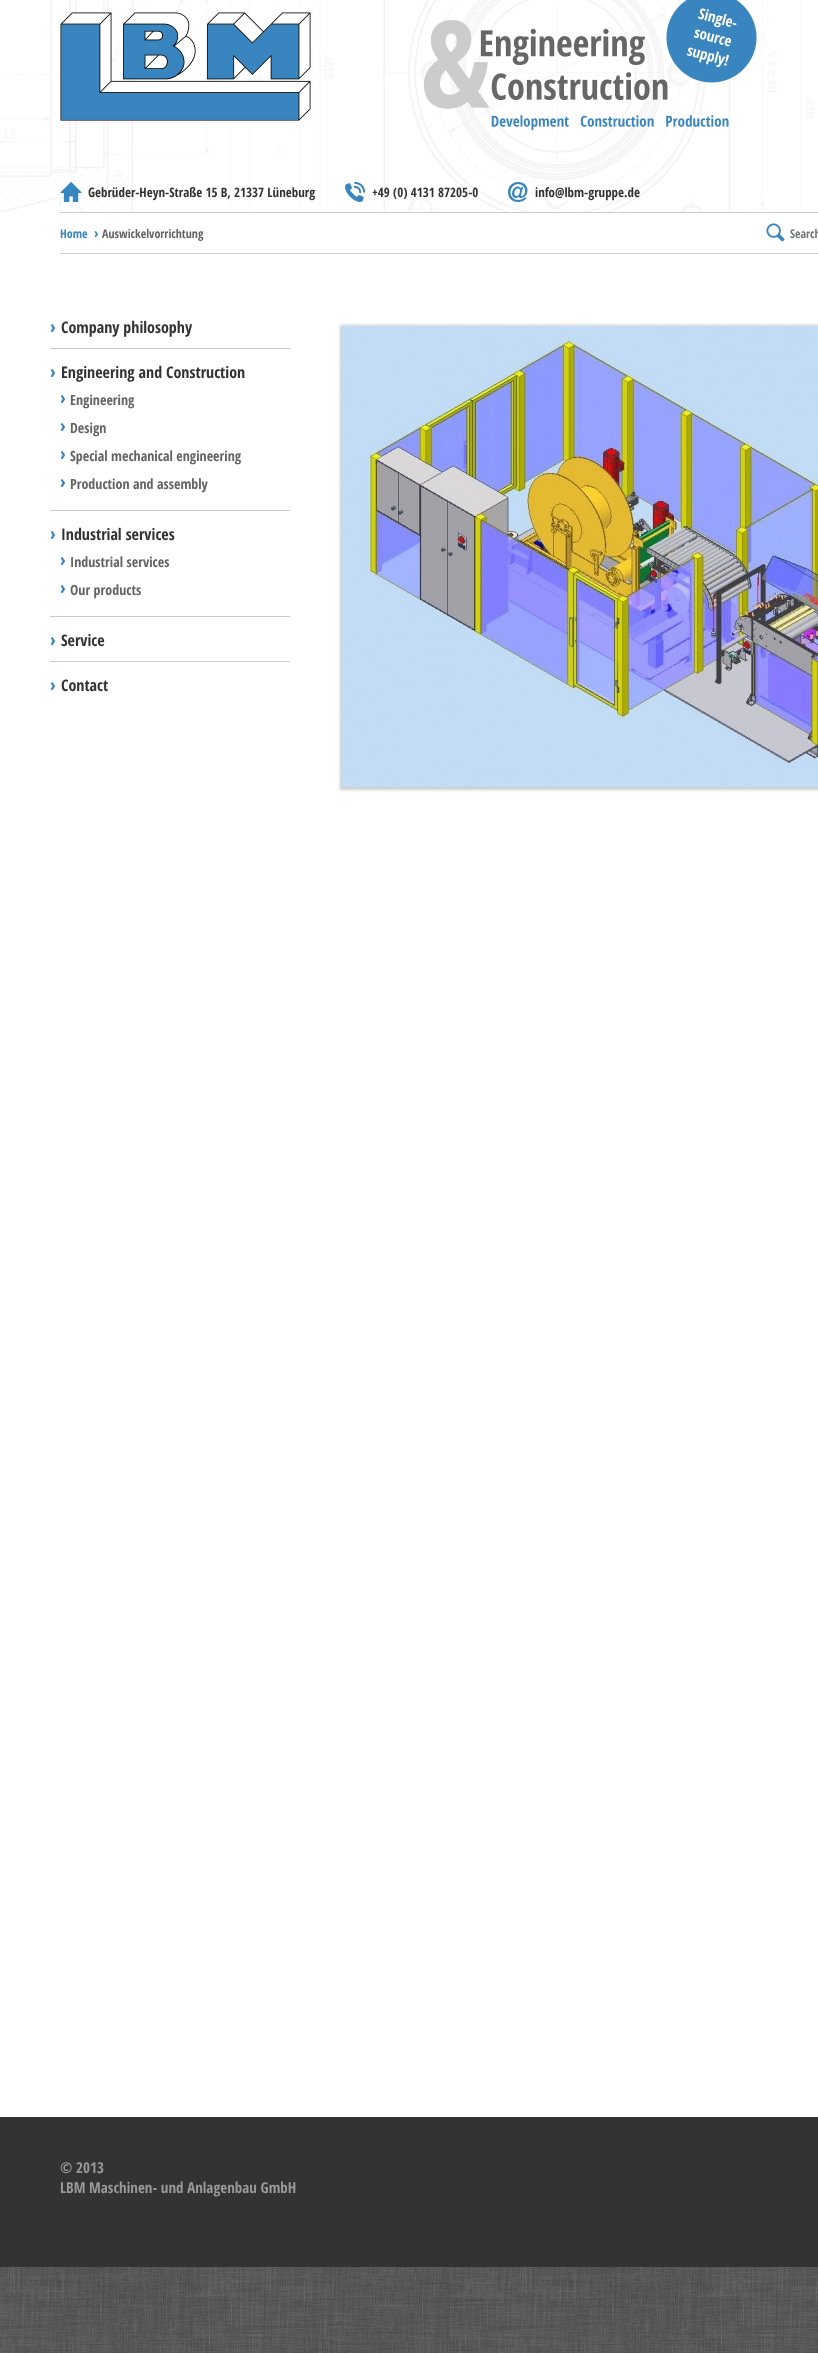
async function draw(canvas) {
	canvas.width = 818;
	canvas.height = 2353;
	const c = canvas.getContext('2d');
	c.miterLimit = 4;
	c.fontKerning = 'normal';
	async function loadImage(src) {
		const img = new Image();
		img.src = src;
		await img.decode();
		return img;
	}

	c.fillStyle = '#fff';
	c.fillRect(0, 0, 818, 2353);
	c.drawImage(await loadImage('img1.png'), 0, 2267, 818, 86);
	c.drawImage(await loadImage('img2.png'), 0, 0, 814, 212);
	c.drawImage(await loadImage('img3.png'), 60, 12, 251, 109);
	c.drawImage(await loadImage('img4.png'), 424, 0, 333, 130);
	c.drawImage(await loadImage('img5.png'), 60, 182, 22, 20);
	c.font = 'bold 13px Open Sans Condensed';
	c.fillStyle = '#333';
	c.fillText('Gebrüder-Heyn-Straße 15 B, 21337 Lüneburg', 88, 197);
	c.drawImage(await loadImage('img6.png'), 345, 182, 20, 20);
	c.fillText('+49 (0) 4131 87205-0', 372, 197);
	c.drawImage(await loadImage('img7.png'), 508, 182, 20, 20);
	c.fillText('info@lbm-gruppe.de', 535, 197);
	c.fillStyle = '#ccc';
	c.fillRect(60, 212, 758, 1);
	c.fillRect(60, 253, 758, 1);
	c.font = 'bold 12px Open Sans Condensed';
	c.fillStyle = '#3885c0';
	c.fillText('Home', 60, 238);
	c.font = 'bold 14px Open Sans Condensed';
	c.fillText('›', 94, 238);
	c.font = 'bold 12px Open Sans Condensed';
	c.fillStyle = '#646464';
	c.fillText('Auswickelvorrichtung', 102, 238);
	c.drawImage(await loadImage('img8.png'), 766, 223, 19, 19);
	c.fillStyle = '#757575';
	c.fillText('Search', 790, 238);
	c.font = 'bold 18px Open Sans Condensed';
	c.fillStyle = '#3885c0';
	c.fillText('›', 50, 333);
	c.font = 'bold 16px Open Sans Condensed';
	c.fillStyle = '#333';
	c.fillText('Company philosophy', 61, 333);
	c.fillStyle = '#ccc';
	c.fillRect(50, 348, 240, 1);
	c.font = 'bold 18px Open Sans Condensed';
	c.fillStyle = '#3885c0';
	c.fillText('›', 50, 378);
	c.font = 'bold 16px Open Sans Condensed';
	c.fillStyle = '#333';
	c.fillText('Engineering and Construction', 61, 378);
	c.font = 'bold 18px Open Sans Condensed';
	c.fillStyle = '#3885c0';
	c.fillText('›', 60, 404);
	c.font = 'bold 14px Open Sans Condensed';
	c.fillStyle = '#646464';
	c.fillText('Engineering', 70, 405);
	c.font = 'bold 18px Open Sans Condensed';
	c.fillStyle = '#3885c0';
	c.fillText('›', 60, 432);
	c.font = 'bold 14px Open Sans Condensed';
	c.fillStyle = '#646464';
	c.fillText('Design', 70, 433);
	c.font = 'bold 18px Open Sans Condensed';
	c.fillStyle = '#3885c0';
	c.fillText('›', 60, 460);
	c.font = 'bold 14px Open Sans Condensed';
	c.fillStyle = '#646464';
	c.fillText('Special mechanical engineering', 70, 461);
	c.font = 'bold 18px Open Sans Condensed';
	c.fillStyle = '#3885c0';
	c.fillText('›', 60, 488);
	c.font = 'bold 14px Open Sans Condensed';
	c.fillStyle = '#646464';
	c.fillText('Production and assembly', 70, 489);
	c.fillStyle = '#ccc';
	c.fillRect(50, 510, 240, 1);
	c.font = 'bold 18px Open Sans Condensed';
	c.fillStyle = '#3885c0';
	c.fillText('›', 50, 540);
	c.font = 'bold 16px Open Sans Condensed';
	c.fillStyle = '#333';
	c.fillText('Industrial services', 61, 540);
	c.font = 'bold 18px Open Sans Condensed';
	c.fillStyle = '#3885c0';
	c.fillText('›', 60, 566);
	c.font = 'bold 14px Open Sans Condensed';
	c.fillStyle = '#646464';
	c.fillText('Industrial services', 70, 567);
	c.font = 'bold 18px Open Sans Condensed';
	c.fillStyle = '#3885c0';
	c.fillText('›', 60, 594);
	c.font = 'bold 14px Open Sans Condensed';
	c.fillStyle = '#646464';
	c.fillText('Our products', 70, 595);
	c.fillStyle = '#ccc';
	c.fillRect(50, 616, 240, 1);
	c.font = 'bold 18px Open Sans Condensed';
	c.fillStyle = '#3885c0';
	c.fillText('›', 50, 646);
	c.font = 'bold 16px Open Sans Condensed';
	c.fillStyle = '#333';
	c.fillText('Service', 61, 646);
	c.fillStyle = '#ccc';
	c.fillRect(50, 661, 240, 1);
	c.font = 'bold 18px Open Sans Condensed';
	c.fillStyle = '#3885c0';
	c.fillText('›', 50, 691);
	c.font = 'bold 16px Open Sans Condensed';
	c.fillStyle = '#333';
	c.fillText('Contact', 61, 691);
	c.fillStyle = '#00000033';
	c.filter = 'blur(1.5px)';
	c.beginPath();
	c.rect(340, 325, 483, 465);
	c.fill();
	c.filter = 'none';
	c.drawImage(await loadImage('img9.png'), 342, 326, 476, 461);
	c.fillStyle = '#333';
	c.fillRect(0, 2117, 818, 150);
	c.font = 'bold 15px Open Sans Condensed';
	c.fillStyle = '#999';
	c.fillText('© 2013', 60, 2173);
	c.fillText('LBM Maschinen- und Anlagenbau GmbH', 60, 2193);
}

draw(document.querySelector('canvas'));
